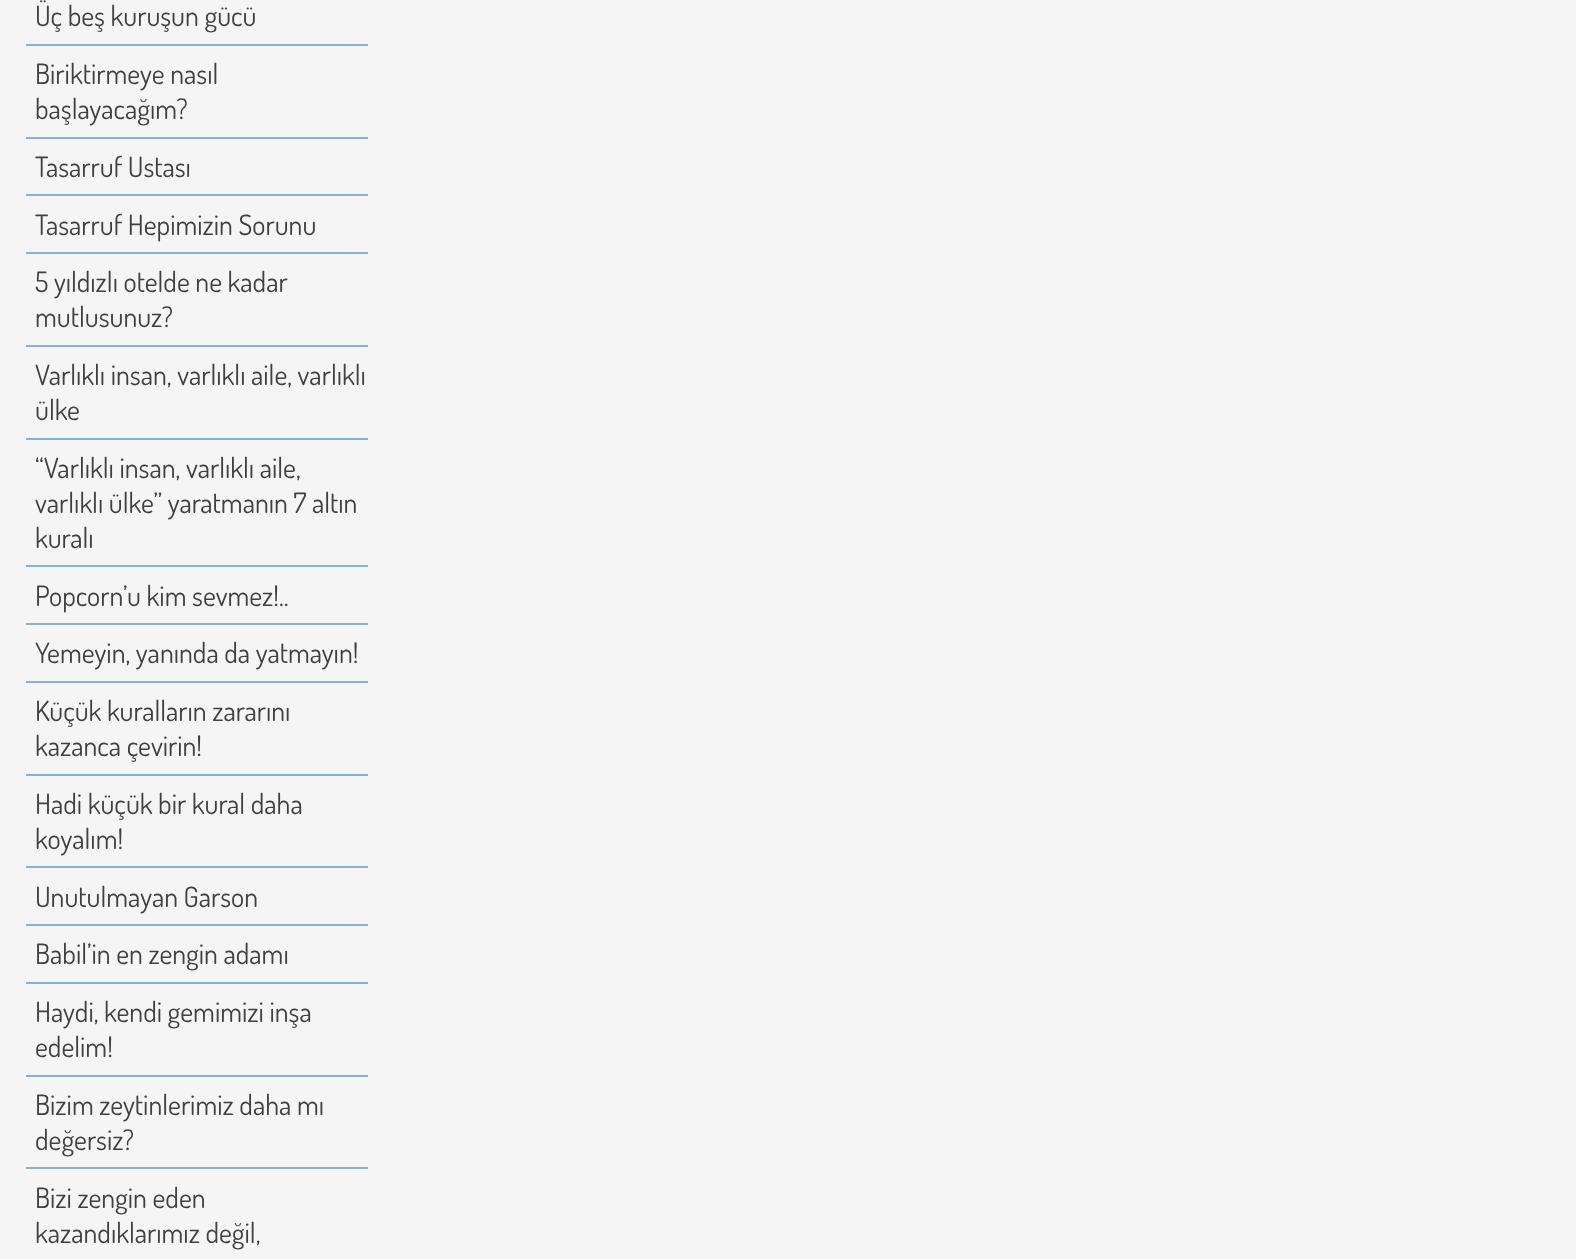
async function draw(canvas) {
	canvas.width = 1576;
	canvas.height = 1259;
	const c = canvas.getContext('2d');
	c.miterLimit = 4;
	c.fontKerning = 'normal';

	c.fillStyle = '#f5f5f6';
	c.fillRect(0, 0, 1576, 1259);
	c.fillStyle = '#87b0d4';
	c.fillRect(26, 44, 342, 2);
	c.font = '28px Dosis';
	c.fillStyle = '#404040';
	c.fillText('Üç beş kuruşun gücü', 35, 26);
	c.fillStyle = '#87b0d4';
	c.fillRect(26, 137, 342, 2);
	c.fillStyle = '#404040';
	c.fillText('Biriktirmeye nasıl', 35, 84);
	c.fillText('başlayacağım?', 35, 119);
	c.fillStyle = '#87b0d4';
	c.fillRect(26, 194, 342, 2);
	c.fillStyle = '#404040';
	c.fillText('Tasarruf Ustası', 35, 177);
	c.fillStyle = '#87b0d4';
	c.fillRect(26, 252, 342, 2);
	c.fillStyle = '#404040';
	c.fillText('Tasarruf Hepimizin Sorunu', 35, 235);
	c.fillStyle = '#87b0d4';
	c.fillRect(26, 345, 342, 2);
	c.fillStyle = '#404040';
	c.fillText('5 yıldızlı otelde ne kadar', 35, 292);
	c.fillText('mutlusunuz?', 35, 327);
	c.fillStyle = '#87b0d4';
	c.fillRect(26, 438, 342, 2);
	c.fillStyle = '#404040';
	c.fillText('Varlıklı insan, varlıklı aile, varlıklı', 35, 385);
	c.fillText('ülke', 35, 420);
	c.fillStyle = '#87b0d4';
	c.fillRect(26, 565, 342, 2);
	c.fillStyle = '#404040';
	for (const [text, x, y] of [
		['“Varlıklı insan, varlıklı aile,', 35, 478],
		['varlıklı ülke” yaratmanın 7 altın', 35, 513],
		['kuralı', 35, 548],
	]) {
		c.fillText(text, x, y);
	}
	c.fillStyle = '#87b0d4';
	c.fillRect(26, 623, 342, 2);
	c.fillStyle = '#404040';
	c.fillText('Popcorn’u kim sevmez!..', 35, 606);
	c.fillStyle = '#87b0d4';
	c.fillRect(26, 681, 342, 2);
	c.fillStyle = '#404040';
	c.fillText('Yemeyin, yanında da yatmayın!', 35, 663);
	c.fillStyle = '#87b0d4';
	c.fillRect(26, 774, 342, 2);
	c.fillStyle = '#404040';
	c.fillText('Küçük kuralların zararını', 35, 721);
	c.fillText('kazanca çevirin!', 35, 756);
	c.fillStyle = '#87b0d4';
	c.fillRect(26, 866, 342, 2);
	c.fillStyle = '#404040';
	c.fillText('Hadi küçük bir kural daha', 35, 814);
	c.fillText('koyalım!', 35, 849);
	c.fillStyle = '#87b0d4';
	c.fillRect(26, 924, 342, 2);
	c.fillStyle = '#404040';
	c.fillText('Unutulmayan Garson', 35, 907);
	c.fillStyle = '#87b0d4';
	c.fillRect(26, 982, 342, 2);
	c.fillStyle = '#404040';
	c.fillText('Babil’in en zengin adamı', 35, 964);
	c.fillStyle = '#87b0d4';
	c.fillRect(26, 1075, 342, 2);
	c.fillStyle = '#404040';
	c.fillText('Haydi, kendi gemimizi inşa', 35, 1022);
	c.fillText('edelim!', 35, 1057);
	c.fillStyle = '#87b0d4';
	c.fillRect(26, 1167, 342, 2);
	c.fillStyle = '#404040';
	for (const [text, x, y] of [
		['Bizim zeytinlerimiz daha mı', 35, 1115],
		['değersiz?', 35, 1150],
		['Bizi zengin eden', 35, 1208],
		['kazandıklarımız değil,', 35, 1243],
	]) {
		c.fillText(text, x, y);
	}
}

draw(document.querySelector('canvas'));
